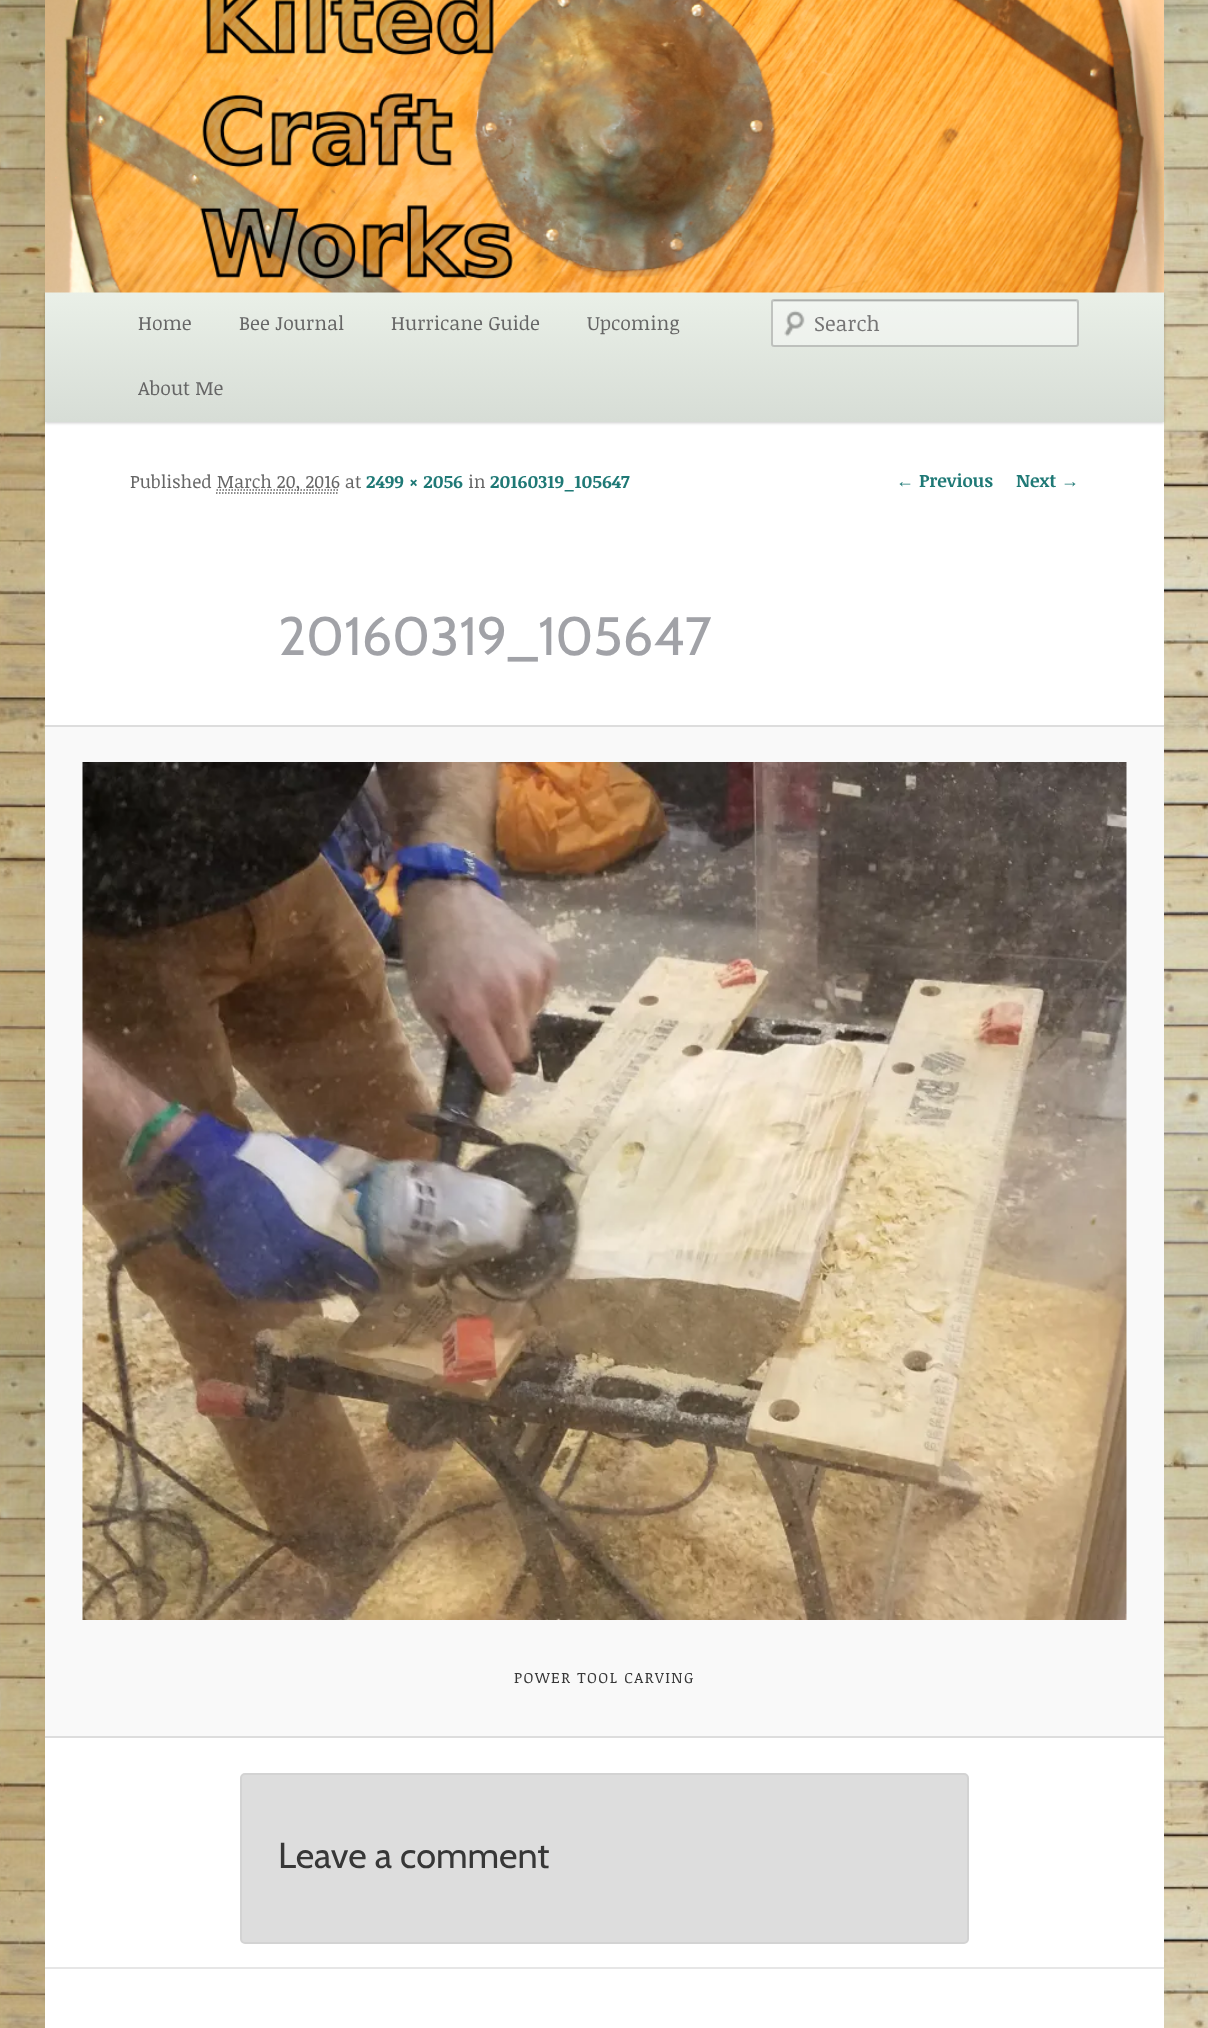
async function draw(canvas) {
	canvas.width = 1208;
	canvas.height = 2028;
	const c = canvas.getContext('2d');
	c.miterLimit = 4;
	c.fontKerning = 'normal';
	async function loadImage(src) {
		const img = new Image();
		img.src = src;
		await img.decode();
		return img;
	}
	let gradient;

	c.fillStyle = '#fff';
	c.fillRect(0, 0, 1208, 2028);
	c.drawImage(await loadImage('img1.png'), 0, 0, 1208, 2028);
	c.fillRect(45, 422, 1119, 1606);
	c.fillStyle = '#00000033';
	c.filter = 'blur(1.5px)';
	c.beginPath();
	c.rect(45, 293, 1119, 130);
	c.fill();
	c.filter = 'none';
	gradient = c.createLinearGradient(605, 291, 605, 422);
	gradient.addColorStop(0, '#eaf0e8');
	gradient.addColorStop(1, '#d7ddd6');
	c.fillStyle = gradient;
	c.fillRect(45, 292, 1119, 130);
	c.drawImage(await loadImage('img2.png'), 45, 0, 1119, 293);
	c.font = '19.5px Noticia Text';
	c.fillStyle = '#666';
	for (const [text, x, y] of [
		['Home', 138, 330],
		['Bee Journal', 239, 330],
		['Hurricane Guide', 391, 330],
		['Upcoming', 587, 330],
		['About Me', 138, 395],
	]) {
		c.fillText(text, x, y);
	}
	c.fillStyle = '#ffffff66';
	c.beginPath();
	c.roundRect(771, 299, 308, 48, 3);
	c.fill();
	c.drawImage(await loadImage('img3.png'), 784, 310, 21, 27);
	c.fillStyle = '#d9ddd9';
	c.beginPath();
	c.moveTo(774, 302);
	c.lineTo(1076, 302);
	c.lineTo(1077, 303);
	c.lineTo(1077, 302);
	c.bezierCurveTo(1077, 301, 1076, 300, 1076, 300);
	c.lineTo(774, 300);
	c.bezierCurveTo(774, 300, 773, 301, 773, 302);
	c.closePath();
	c.fill();
	c.beginPath();
	c.roundRect(772, 300, 306, 46, 2);
	c.strokeStyle = '#00000033';
	c.lineWidth = 2;
	c.stroke();
	c.font = '21px Noticia Text';
	c.fillStyle = '#757575';
	c.fillText('Search', 814, 331);
	c.font = '18px Noticia Text';
	c.fillStyle = '#666';
	c.fillText('Published', 130, 488);
	c.beginPath();
	c.moveTo(216.5, 490);
	c.lineTo(339.5, 490);
	c.strokeStyle = '#666';
	c.lineWidth = 1.5;
	c.setLineDash([1.5, 1.5]);
	c.stroke();
	c.fillText('March 20, 2016 at', 217, 488);
	c.beginPath();
	c.moveTo(216, 493);
	c.lineTo(339, 493);
	c.stroke();
	c.font = 'bold 18px Noticia Text';
	c.fillStyle = '#1f7976';
	c.fillText('2499 × 2056', 366, 488);
	c.font = '18px Noticia Text';
	c.fillStyle = '#666';
	c.fillText('in', 468, 488);
	c.font = 'bold 18px Noticia Text';
	c.fillStyle = '#1f7976';
	c.fillText('20160319_105647', 490, 488);
	c.font = '54px Cabin';
	c.fillStyle = '#a1a2a7';
	c.fillText('20160319_105647', 278, 655);
	for (const [x, y, w, h, color] of [
		[45, 727, 1119, 1009, '#f9f9f9'],
		[45, 725, 1119, 2, '#ddd'],
		[45, 1736, 1119, 2, '#ddd'],
	]) {
		c.fillStyle = color;
		c.fillRect(x, y, w, h);
	}
	c.drawImage(await loadImage('img4.png'), 82, 762, 1045, 858);
	c.letterSpacing = '1.5px';
	c.font = '15px Noticia Text';
	c.fillStyle = '#373737';
	c.fillText('POWER TOOL CARVING', 514, 1683);
	c.letterSpacing = '0px';
	c.font = 'bold 18px Liberation Serif';
	c.fillStyle = '#1f7976';
	c.fillText('←', 896, 487);
	c.font = 'bold 18px Noticia Text';
	c.fillText('Previous', 919, 487);
	c.fillText('Next', 1016, 487);
	c.font = 'bold 18px Liberation Serif';
	c.fillText('→', 1061, 487);
	c.fillStyle = '#ddd';
	c.beginPath();
	c.roundRect(241, 1774, 727, 169, 4);
	c.fill();
	c.strokeStyle = '#d3d3d3';
	c.lineWidth = 2;
	c.setLineDash([]);
	c.stroke();
	c.font = '36px Cabin';
	c.fillStyle = '#373737';
	c.fillText('Leave a comment', 278, 1868);
	c.fillStyle = '#e6e6e6';
	c.fillRect(45, 1967, 1119, 2);
}

draw(document.querySelector('canvas'));
